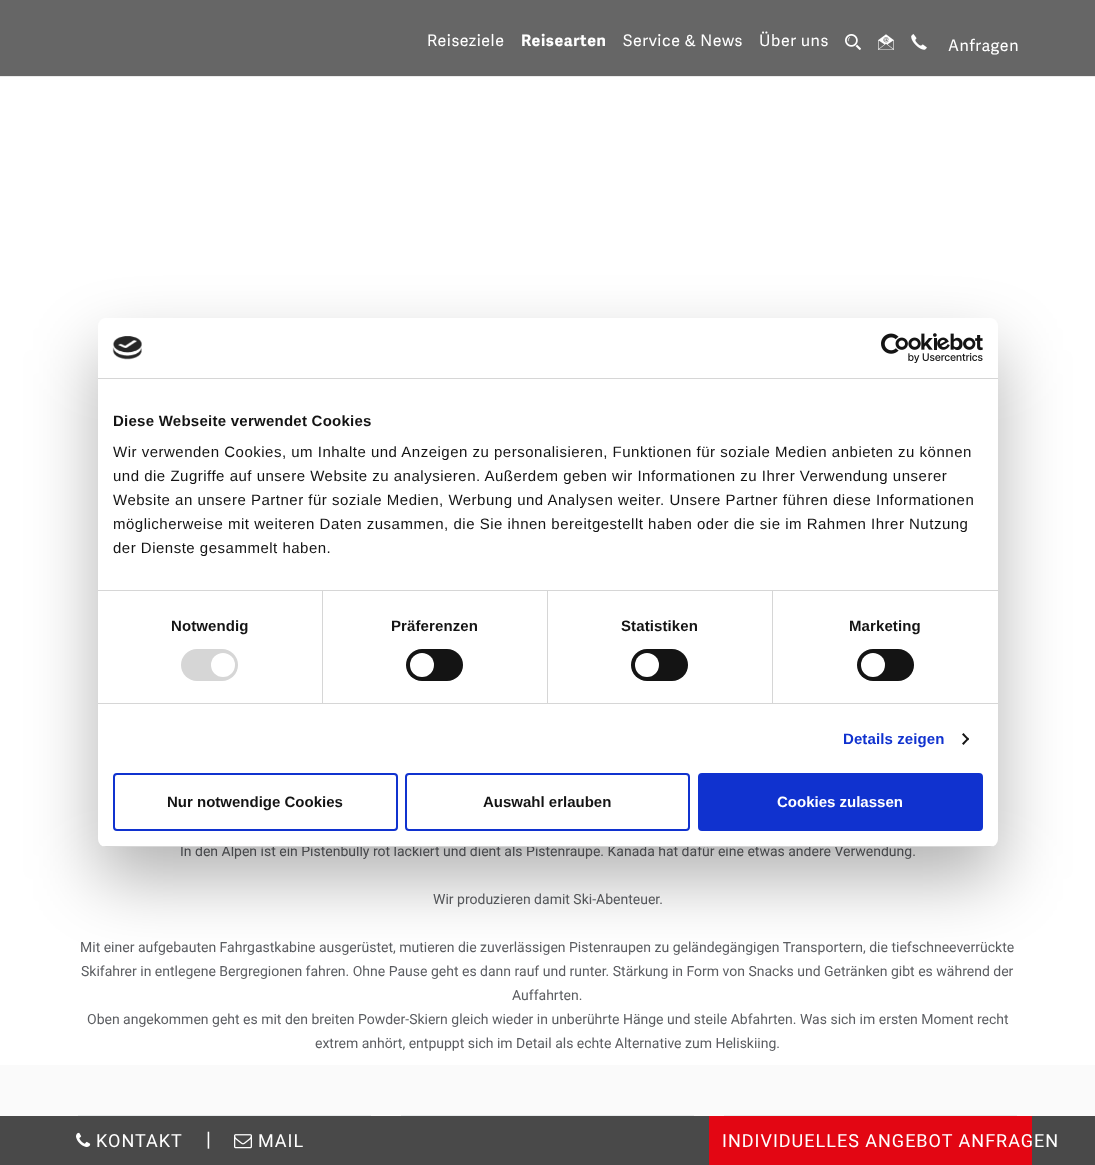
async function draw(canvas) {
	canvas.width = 1095;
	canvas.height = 1165;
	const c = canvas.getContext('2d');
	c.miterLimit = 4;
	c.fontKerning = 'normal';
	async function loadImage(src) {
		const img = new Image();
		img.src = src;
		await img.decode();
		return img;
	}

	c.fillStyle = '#fff';
	c.fillRect(0, 0, 1095, 1165);
	c.fillStyle = '#666';
	c.fillRect(0, 0, 1095, 76);
	c.fillStyle = '#eaeaea';
	c.fillRect(0, 76, 1095, 1);
	c.letterSpacing = '0.6px';
	c.font = '16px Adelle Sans';
	c.fillStyle = '#fff';
	c.fillText('Reiseziele', 427, 46);
	c.font = 'bold 16px Adelle Sans';
	c.fillText('Reisearten', 521, 46);
	c.font = '16px Adelle Sans';
	c.fillText('Service & News', 623, 46);
	c.fillText('Über uns', 759, 46);
	c.drawImage(await loadImage('img1.png'), 845, 34, 16, 16);
	c.drawImage(await loadImage('img2.png'), 878, 34, 16, 16);
	c.drawImage(await loadImage('img3.png'), 911, 34, 16, 16);
	c.fillText('Anfragen', 948, 51);
	c.letterSpacing = '0px';
	c.font = '14px Roboto';
	c.fillStyle = '#5c5e62';
	for (const [text, x, y] of [
		['In den Alpen ist ein Pistenbully rot lackiert und dient als Pistenraupe. Kanada hat dafür eine etwas andere Verwendung.', 180, 856],
		['Wir produzieren damit Ski-Abenteuer.', 433, 904],
		['Mit einer aufgebauten Fahrgastkabine ausgerüstet, mutieren die zuverlässigen Pistenraupen zu geländegängigen Transportern, die tiefschneeverrückte', 80, 952],
		['Skifahrer in entlegene Bergregionen fahren. Ohne Pause geht es dann rauf und runter. Stärkung in Form von Snacks und Getränken gibt es während der', 81, 976],
		['Auffahrten.', 512, 1000],
		['Oben angekommen geht es mit den breiten Powder-Skiern gleich wieder in unberührte Hänge und steile Abfahrten. Was sich im ersten Moment recht', 87, 1024],
		['extrem anhört, entpuppt sich im Detail als echte Alternative zum Heliskiing.', 315, 1048],
	]) {
		c.fillText(text, x, y);
	}
	for (const [x, y, w, h, color] of [
		[0, 1065, 1095, 51, '#fafafa'],
		[78, 1115, 293, 1, '#e8ebec'],
		[401, 1115, 293, 1, '#e8ebec'],
		[724, 1115, 293, 1, '#e8ebec'],
	]) {
		c.fillStyle = color;
		c.fillRect(x, y, w, h);
	}
	c.fillStyle = '#0000004d';
	c.filter = 'blur(34px)';
	c.beginPath();
	c.roundRect(98, 350, 900, 529, 8);
	c.fill();
	c.filter = 'none';
	c.fillStyle = '#fff';
	c.beginPath();
	c.roundRect(98, 318, 900, 529, 8);
	c.fill();
	c.fillStyle = '#d6d6d6';
	c.fillRect(98, 378, 900, 1);
	c.drawImage(await loadImage('img4.png'), 112, 336, 30, 24);
	c.drawImage(await loadImage('img5.png'), 881, 333, 102, 30);
	c.fillRect(98, 590, 900, 1);
	c.letterSpacing = '0.25px';
	c.font = 'bold 15px Liberation Sans';
	c.fillStyle = '#141414';
	c.fillText('Diese Webseite verwendet Cookies', 113, 426);
	c.letterSpacing = '0.5px';
	c.font = '15px Liberation Sans';
	for (const [text, x, y] of [
		['Wir verwenden Cookies, um Inhalte und Anzeigen zu personalisieren, Funktionen für soziale Medien anbieten zu können', 113, 457],
		['und die Zugriffe auf unsere Website zu analysieren. Außerdem geben wir Informationen zu Ihrer Verwendung unserer', 113, 481],
		['Website an unsere Partner für soziale Medien, Werbung und Analysen weiter. Unsere Partner führen diese Informationen', 113, 505],
		['möglicherweise mit weiteren Daten zusammen, die Sie ihnen bereitgestellt haben oder die sie im Rahmen Ihrer Nutzung', 113, 529],
		['der Dienste gesammelt haben.', 113, 553],
	]) {
		c.fillText(text, x, y);
	}
	c.fillStyle = '#d6d6d6';
	c.fillRect(98, 703, 900, 1);
	c.fillRect(322, 591, 1, 112);
	c.letterSpacing = '0.1px';
	c.font = 'bold 15px Liberation Sans';
	c.fillStyle = '#141414';
	c.fillText('Notwendig', 171, 631);
	c.fillStyle = '#d6d6d6';
	c.beginPath();
	c.roundRect(181, 649, 57, 32, 16);
	c.fill();
	c.fillStyle = '#fff';
	c.beginPath();
	c.arc(223, 665, 12, 0, 2 * Math.PI);
	c.fill();
	c.fillStyle = '#d6d6d6';
	c.fillRect(547, 591, 1, 112);
	c.fillStyle = '#141414';
	c.fillText('Präferenzen', 391, 631);
	c.beginPath();
	c.roundRect(406, 649, 57, 32, 16);
	c.fill();
	c.fillStyle = '#fff';
	c.beginPath();
	c.arc(422, 665, 12, 0, 2 * Math.PI);
	c.fill();
	c.fillStyle = '#d6d6d6';
	c.fillRect(772, 591, 1, 112);
	c.fillStyle = '#141414';
	c.fillText('Statistiken', 621, 631);
	c.beginPath();
	c.roundRect(631, 649, 57, 32, 16);
	c.fill();
	c.fillStyle = '#fff';
	c.beginPath();
	c.arc(647, 665, 12, 0, 2 * Math.PI);
	c.fill();
	c.fillStyle = '#141414';
	c.fillText('Marketing', 849, 631);
	c.beginPath();
	c.roundRect(857, 649, 57, 32, 16);
	c.fill();
	c.fillStyle = '#fff';
	c.beginPath();
	c.arc(873, 665, 12, 0, 2 * Math.PI);
	c.fill();
	c.fillStyle = '#1032cf';
	c.fillText('Details zeigen', 843, 744);
	c.fillStyle = '#141414';
	c.beginPath();
	c.moveTo(963.5, 733);
	c.lineTo(969, 739);
	c.lineTo(968, 740.5);
	c.lineTo(962, 734.5);
	c.closePath();
	c.fill();
	c.beginPath();
	c.moveTo(968, 737.5);
	c.lineTo(969, 739);
	c.lineTo(963.5, 745);
	c.lineTo(962, 743.5);
	c.closePath();
	c.fill();
	c.save();
	c.beginPath();
	c.roundRect(98, 318, 900, 529, 8);
	c.clip();
	c.fillStyle = '#d6d6d6';
	c.fillRect(98, 846, 900, 1);
	c.restore();
	c.beginPath();
	c.roundRect(114, 774, 283, 56, 3);
	c.strokeStyle = '#1032cf';
	c.lineWidth = 2;
	c.stroke();
	c.letterSpacing = '0px';
	c.fillText('Nur notwendige Cookies', 167, 807);
	c.beginPath();
	c.roundRect(406, 774, 283, 56, 3);
	c.stroke();
	c.fillText('Auswahl erlauben', 483, 807);
	c.fillStyle = '#1032cf';
	c.beginPath();
	c.roundRect(699, 774, 283, 56, 3);
	c.fill();
	c.stroke();
	c.fillStyle = '#fff';
	c.fillText('Cookies zulassen', 777, 807);
	c.fillStyle = '#494949';
	c.fillRect(0, 1116, 1095, 49);
	c.drawImage(await loadImage('img6.png'), 76, 1132, 15, 15);
	c.letterSpacing = '1px';
	c.font = '18px Roboto';
	c.fillStyle = '#fff';
	c.fillText('KONTAKT', 96, 1147);
	c.letterSpacing = '0px';
	c.font = '20px Roboto';
	c.fillText('|', 206, 1146);
	c.drawImage(await loadImage('img7.png'), 234, 1134, 18, 15);
	c.letterSpacing = '1px';
	c.font = '18px Roboto';
	c.fillText('MAIL', 258, 1147);
	c.fillStyle = '#e30613';
	c.fillRect(709, 1116, 323, 49);
	c.fillStyle = '#fff';
	c.fillText('INDIVIDUELLES ANGEBOT ANFRAGEN', 722, 1147);
}

draw(document.querySelector('canvas'));
